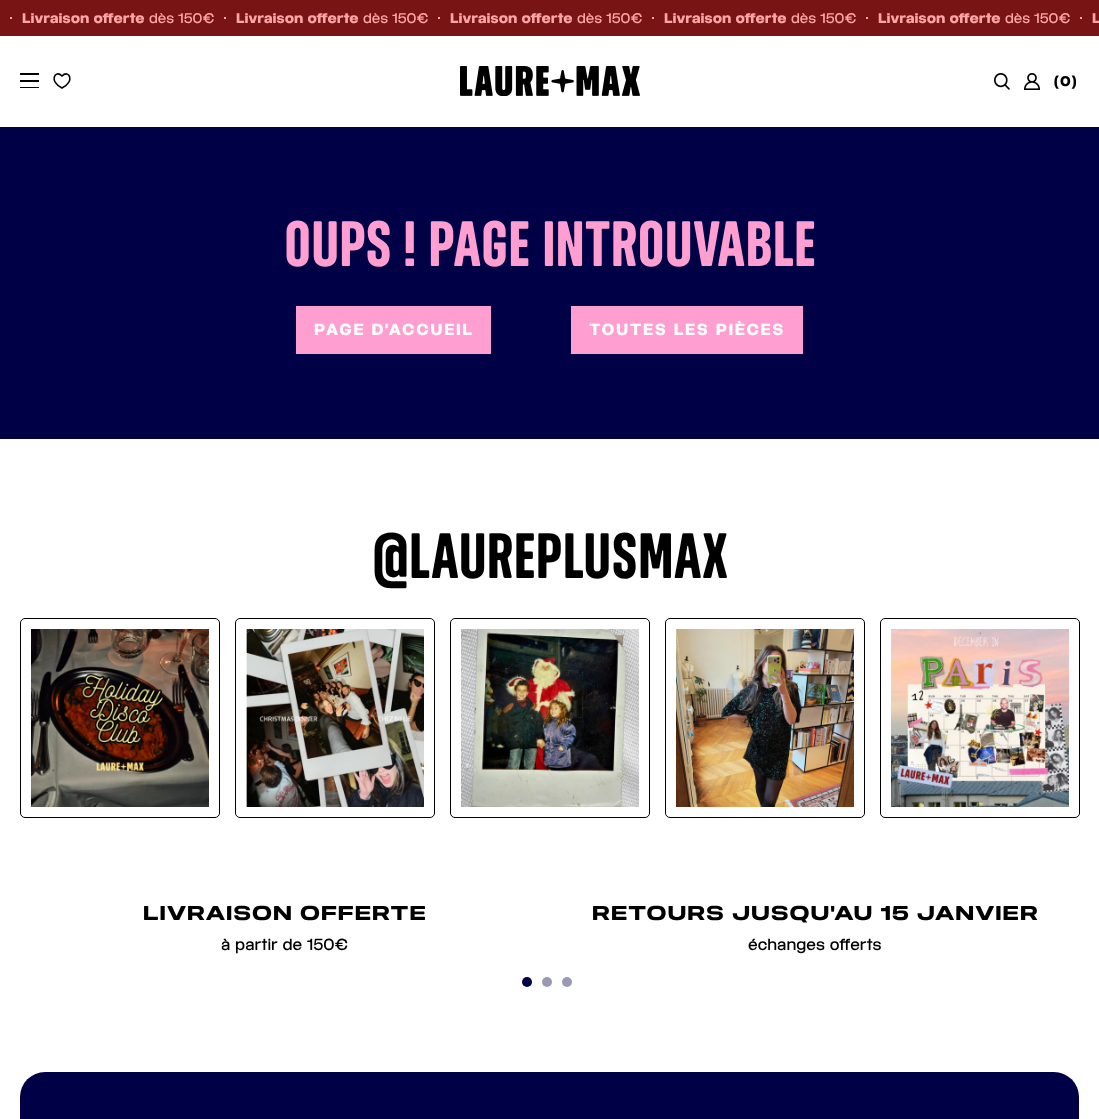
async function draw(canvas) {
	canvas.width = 1099;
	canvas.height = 1119;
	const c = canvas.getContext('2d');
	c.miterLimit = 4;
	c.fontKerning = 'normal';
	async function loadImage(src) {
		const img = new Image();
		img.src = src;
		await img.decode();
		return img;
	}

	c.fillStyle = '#fff';
	c.fillRect(0, 0, 1099, 1119);
	c.fillStyle = '#781414';
	c.fillRect(0, 0, 1099, 36);
	c.fillStyle = '#ffa5a5';
	c.fillRect(10, 17, 2, 2);
	c.font = 'bold 14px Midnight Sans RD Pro';
	c.fillText('Livraison offerte', 22, 23);
	c.font = '14px Midnight Sans RD Pro';
	c.fillText('dès 150€', 149, 23);
	c.fillRect(224, 17, 2, 2);
	c.font = 'bold 14px Midnight Sans RD Pro';
	c.fillText('Livraison offerte', 236, 23);
	c.font = '14px Midnight Sans RD Pro';
	c.fillText('dès 150€', 363, 23);
	c.fillRect(438, 17, 2, 2);
	c.font = 'bold 14px Midnight Sans RD Pro';
	c.fillText('Livraison offerte', 450, 23);
	c.font = '14px Midnight Sans RD Pro';
	c.fillText('dès 150€', 577, 23);
	c.fillRect(652, 17, 2, 2);
	c.font = 'bold 14px Midnight Sans RD Pro';
	c.fillText('Livraison offerte', 664, 23);
	c.font = '14px Midnight Sans RD Pro';
	c.fillText('dès 150€', 791, 23);
	c.fillRect(866, 17, 2, 2);
	c.font = 'bold 14px Midnight Sans RD Pro';
	c.fillText('Livraison offerte', 878, 23);
	c.font = '14px Midnight Sans RD Pro';
	c.fillText('dès 150€', 1005, 23);
	c.fillRect(1080, 17, 2, 2);
	c.font = 'bold 14px Midnight Sans RD Pro';
	c.fillText('L', 1092, 23);
	for (const [x, y, w, h, color] of [
		[20, 73, 19, 2, '#000'],
		[20, 80, 19, 2, '#000'],
		[20, 87, 19, 1, '#000'],
	]) {
		c.fillStyle = color;
		c.fillRect(x, y, w, h);
	}
	c.beginPath();
	c.moveTo(62, 88);
	c.bezierCurveTo(48.5, 81.5, 55, 69, 62, 76);
	c.bezierCurveTo(69, 69, 75.5, 81.5, 62, 88);
	c.closePath();
	c.strokeStyle = '#000';
	c.lineWidth = 1.6;
	c.stroke();
	c.drawImage(await loadImage('img1.png'), 460, 66, 180, 30);
	c.drawImage(await loadImage('img2.png'), 994, 73, 16, 17);
	c.drawImage(await loadImage('img3.png'), 1024, 73, 16, 17);
	c.letterSpacing = '1.5px';
	c.fillText('(0)', 1054, 86);
	c.fillStyle = '#000046';
	c.fillRect(0, 127, 1099, 312);
	c.letterSpacing = '0px';
	c.font = '600 64px Midnight Sans RD Pro';
	c.fillStyle = '#ff9ed1';
	c.fillText('OUPS ! PAGE INTROUVABLE', 284, 266);
	c.fillRect(296, 306, 195, 48);
	c.letterSpacing = '1.6px';
	c.font = 'bold 16px Midnight Sans RD Pro';
	c.fillStyle = '#fff';
	c.fillText('PAGE D\'ACCUEIL', 314, 335);
	c.fillStyle = '#ff9ed1';
	c.fillRect(571, 306, 232, 48);
	c.fillStyle = '#fff';
	c.fillText('TOUTES LES PIÈCES', 589, 335);
	c.letterSpacing = '0px';
	c.font = '600 64px Midnight Sans RD Pro';
	c.fillStyle = '#000';
	c.fillText('@LAUREPLUSMAX', 372, 578);
	c.beginPath();
	c.roundRect(20.5, 618.5, 199, 199, 4.5);
	c.lineWidth = 1;
	c.stroke();
	c.drawImage(await loadImage('img4.png'), 31, 629, 178, 178);
	c.beginPath();
	c.roundRect(235.5, 618.5, 199, 199, 4.5);
	c.stroke();
	c.drawImage(await loadImage('img5.png'), 246, 629, 178, 178);
	c.beginPath();
	c.roundRect(450.5, 618.5, 199, 199, 4.5);
	c.stroke();
	c.drawImage(await loadImage('img6.png'), 461, 629, 178, 178);
	c.beginPath();
	c.roundRect(665.5, 618.5, 199, 199, 4.5);
	c.stroke();
	c.drawImage(await loadImage('img7.png'), 676, 629, 178, 178);
	c.beginPath();
	c.roundRect(880.5, 618.5, 199, 199, 4.5);
	c.stroke();
	c.drawImage(await loadImage('img8.png'), 891, 629, 178, 178);
	c.letterSpacing = '1px';
	c.font = 'bold 20px "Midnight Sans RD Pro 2"';
	c.fillText('LIVRAISON OFFERTE', 143, 920);
	c.letterSpacing = '0px';
	c.font = '16px Midnight Sans RD Pro';
	c.fillText('à partir de 150€', 221, 950);
	c.letterSpacing = '1px';
	c.font = 'bold 20px "Midnight Sans RD Pro 2"';
	c.fillText('RETOURS JUSQU\'AU 15 JANVIER', 592, 920);
	c.letterSpacing = '0px';
	c.font = '16px Midnight Sans RD Pro';
	c.fillText('échanges offerts', 748, 950);
	c.fillStyle = '#000046';
	c.beginPath();
	c.arc(527, 982, 5, 0, 2 * Math.PI);
	c.fill();
	c.fillStyle = '#9999b5';
	c.beginPath();
	c.arc(547, 982, 5, 0, 2 * Math.PI);
	c.fill();
	c.beginPath();
	c.arc(567, 982, 5, 0, 2 * Math.PI);
	c.fill();
	c.fillStyle = '#000046';
	c.beginPath();
	c.roundRect(20, 1072, 1059, 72, 25);
	c.fill();
}

draw(document.querySelector('canvas'));
